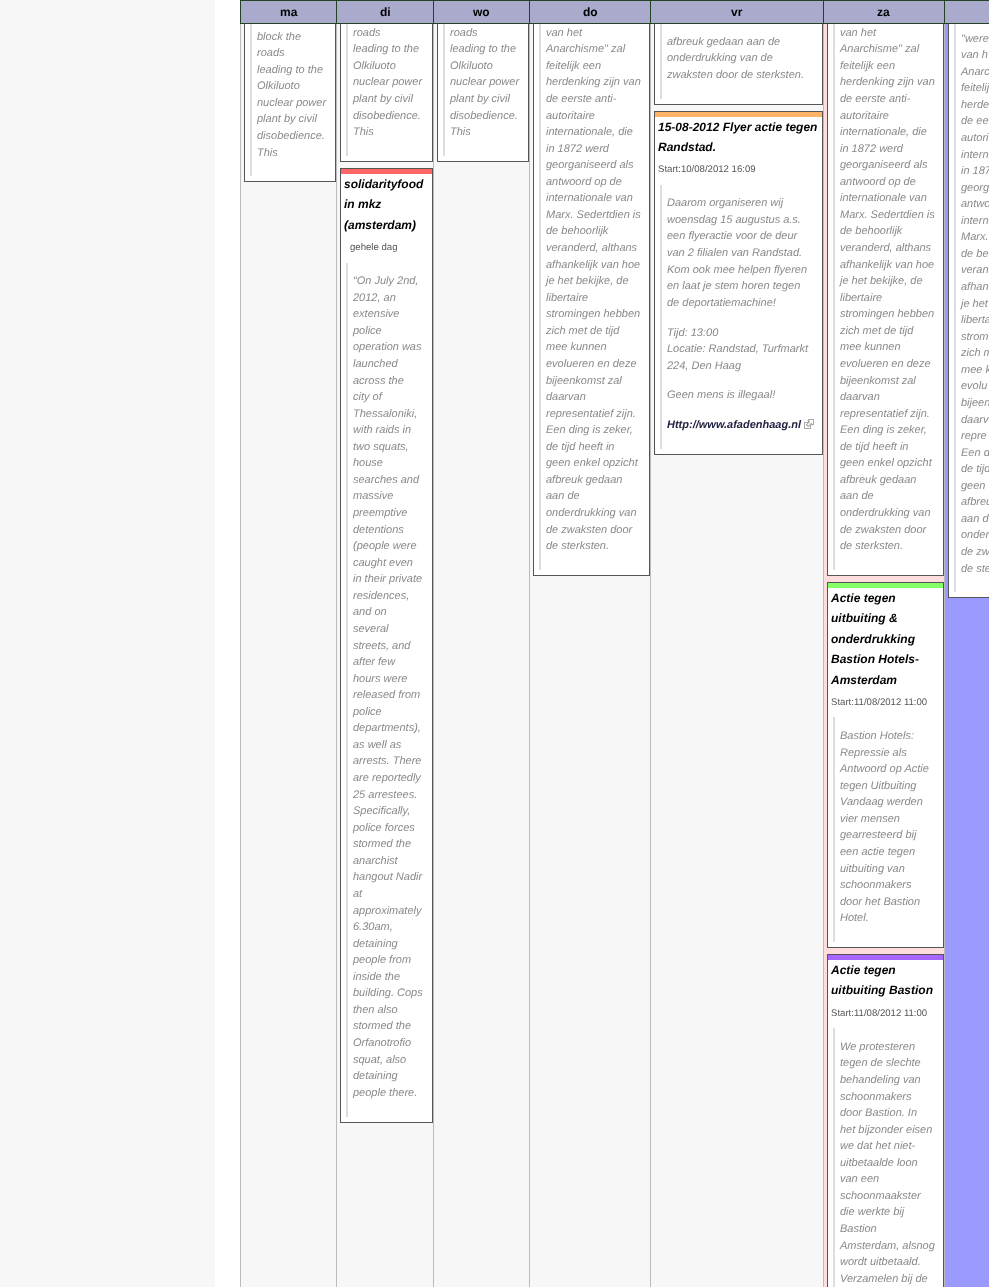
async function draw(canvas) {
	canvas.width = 989;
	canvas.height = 1287;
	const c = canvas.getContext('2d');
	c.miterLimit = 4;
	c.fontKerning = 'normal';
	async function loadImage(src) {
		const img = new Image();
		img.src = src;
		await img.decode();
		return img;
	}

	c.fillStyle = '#f7f7f7';
	c.fillRect(0, 0, 989, 1287);
	c.fillStyle = '#fff';
	c.fillRect(215, 0, 25, 1287);
	c.fillRect(245, 24, 90, 157);
	c.strokeStyle = '#555';
	c.strokeRect(244.5, -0.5, 91, 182);
	c.fillRect(341, 24, 91, 137);
	c.strokeRect(340.5, -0.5, 92, 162);
	c.fillRect(438, 24, 90, 137);
	c.strokeRect(437.5, -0.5, 91, 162);
	c.fillRect(534, 24, 115, 551);
	c.strokeRect(533.5, -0.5, 116, 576);
	c.fillRect(655, 24, 167, 80);
	c.strokeRect(654.5, -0.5, 168, 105);
	c.fillStyle = '#fdd';
	c.fillRect(824, 24, 120, 1263);
	c.fillStyle = '#fff';
	c.fillRect(828, 24, 115, 551);
	c.strokeRect(827.5, -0.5, 116, 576);
	c.fillStyle = '#99f';
	c.fillRect(945, 24, 44, 1263);
	c.fillStyle = '#fff';
	c.fillRect(949, 24, 40, 573);
	c.strokeRect(948.5, -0.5, 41, 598);
	for (const [x, y, w, h, color] of [
		[240, 0, 749, 1, '#242'],
		[240, 23, 749, 1, '#242'],
		[240, 0, 1, 24, '#242'],
		[241, 1, 95, 22, '#aac'],
	]) {
		c.fillStyle = color;
		c.fillRect(x, y, w, h);
	}
	c.font = 'bold 12px Liberation Sans';
	c.fillStyle = '#000';
	c.fillText('ma', 280, 16);
	c.fillStyle = '#aac';
	c.fillRect(337, 1, 96, 22);
	c.fillStyle = '#242';
	c.fillRect(336, 0, 1, 24);
	c.fillStyle = '#000';
	c.fillText('di', 380, 16);
	c.fillStyle = '#aac';
	c.fillRect(434, 1, 95, 22);
	c.fillStyle = '#242';
	c.fillRect(433, 0, 1, 24);
	c.fillStyle = '#000';
	c.fillText('wo', 473, 16);
	c.fillStyle = '#aac';
	c.fillRect(530, 1, 120, 22);
	c.fillStyle = '#242';
	c.fillRect(529, 0, 1, 24);
	c.fillStyle = '#000';
	c.fillText('do', 583, 16);
	c.fillStyle = '#aac';
	c.fillRect(651, 1, 172, 22);
	c.fillStyle = '#242';
	c.fillRect(650, 0, 1, 24);
	c.fillStyle = '#000';
	c.fillText('vr', 731, 16);
	c.fillStyle = '#aac';
	c.fillRect(824, 1, 120, 22);
	c.fillStyle = '#242';
	c.fillRect(823, 0, 1, 24);
	c.fillStyle = '#000';
	c.fillText('za', 877, 16);
	for (const [x, y, w, h, color] of [
		[945, 1, 44, 22, '#aac'],
		[944, 0, 1, 24, '#242'],
		[240, 24, 1, 1263, '#bbb'],
		[250, 24, 2, 152, '#ddd'],
	]) {
		c.fillStyle = color;
		c.fillRect(x, y, w, h);
	}
	c.font = 'italic 11px Liberation Sans';
	c.fillStyle = '#898989';
	for (const [text, x, y] of [
		['block the', 257, 40],
		['roads', 257, 56],
		['leading to the', 257, 73],
		['Olkiluoto', 257, 89],
		['nuclear power', 257, 106],
		['plant by civil', 257, 122],
		['disobedience.', 257, 139],
		['This', 257, 156],
	]) {
		c.fillText(text, x, y);
	}
	c.fillStyle = '#bbb';
	c.fillRect(336, 24, 1, 1263);
	c.fillStyle = '#ddd';
	c.fillRect(346, 24, 2, 132);
	c.fillStyle = '#898989';
	for (const [text, x, y] of [
		['roads', 353, 36],
		['leading to the', 353, 52],
		['Olkiluoto', 353, 69],
		['nuclear power', 353, 85],
		['plant by civil', 353, 102],
		['disobedience.', 353, 119],
		['This', 353, 135],
	]) {
		c.fillText(text, x, y);
	}
	c.fillStyle = '#fff';
	c.fillRect(341, 174, 91, 948);
	c.strokeRect(340.5, 168.5, 92, 954);
	c.fillStyle = '#f66';
	c.fillRect(341, 169, 91, 5);
	c.font = 'italic bold 12px Liberation Sans';
	c.fillStyle = '#000';
	for (const [text, x, y] of [
		['solidarityfood', 344, 188],
		['in mkz', 344, 208],
		['(amsterdam)', 344, 229],
	]) {
		c.fillText(text, x, y);
	}
	c.font = '9.6px Liberation Sans';
	c.fillStyle = '#555';
	c.fillText('gehele dag', 350, 250);
	c.fillStyle = '#ddd';
	c.fillRect(346, 263, 2, 854);
	c.font = 'italic 11px Liberation Sans';
	c.fillStyle = '#898989';
	for (const [text, x, y] of [
		['“On July 2nd,', 353, 284],
		['2012, an', 353, 301],
		['extensive', 353, 317],
		['police', 353, 334],
		['operation was', 353, 350],
		['launched', 353, 367],
		['across the', 353, 384],
		['city of', 353, 400],
		['Thessaloniki,', 353, 417],
		['with raids in', 353, 433],
		['two squats,', 353, 450],
		['house', 353, 466],
		['searches and', 353, 483],
		['massive', 353, 499],
		['preemptive', 353, 516],
		['detentions', 353, 533],
		['(people were', 353, 549],
		['caught even', 353, 566],
		['in their private', 353, 582],
		['residences,', 353, 599],
		['and on', 353, 615],
		['several', 353, 632],
		['streets, and', 353, 649],
		['after few', 353, 665],
		['hours were', 353, 682],
		['released from', 353, 698],
		['police', 353, 715],
		['departments),', 353, 731],
		['as well as', 353, 748],
		['arrests. There', 353, 764],
		['are reportedly', 353, 781],
		['25 arrestees.', 353, 798],
		['Specifically,', 353, 814],
		['police forces', 353, 831],
		['stormed the', 353, 847],
		['anarchist', 353, 864],
		['hangout Nadir', 353, 880],
		['at', 353, 897],
		['approximately', 353, 914],
		['6.30am,', 353, 930],
		['detaining', 353, 947],
		['people from', 353, 963],
		['inside the', 353, 980],
		['building. Cops', 353, 996],
		['then also', 353, 1013],
		['stormed the', 353, 1029],
		['Orfanotrofio', 353, 1046],
		['squat, also', 353, 1063],
		['detaining', 353, 1079],
		['people there.', 353, 1096],
	]) {
		c.fillText(text, x, y);
	}
	c.fillStyle = '#bbb';
	c.fillRect(433, 24, 1, 1263);
	c.fillStyle = '#ddd';
	c.fillRect(443, 24, 2, 132);
	c.fillStyle = '#898989';
	for (const [text, x, y] of [
		['roads', 450, 36],
		['leading to the', 450, 52],
		['Olkiluoto', 450, 69],
		['nuclear power', 450, 85],
		['plant by civil', 450, 102],
		['disobedience.', 450, 119],
		['This', 450, 135],
	]) {
		c.fillText(text, x, y);
	}
	c.fillStyle = '#bbb';
	c.fillRect(529, 24, 1, 1263);
	c.fillStyle = '#ddd';
	c.fillRect(539, 24, 2, 546);
	c.fillStyle = '#898989';
	for (const [text, x, y] of [
		['van het', 546, 36],
		['Anarchisme" zal', 546, 52],
		['feitelijk een', 546, 69],
		['herdenking zijn van', 546, 85],
		['de eerste anti-', 546, 102],
		['autoritaire', 546, 119],
		['internationale, die', 546, 135],
		['in 1872 werd', 546, 152],
		['georganiseerd als', 546, 168],
		['antwoord op de', 546, 185],
		['internationale van', 546, 201],
		['Marx. Sedertdien is', 546, 218],
		['de behoorlijk', 546, 234],
		['veranderd, althans', 546, 251],
		['afhankelijk van hoe', 546, 268],
		['je het bekijke, de', 546, 284],
		['libertaire', 546, 301],
		['stromingen hebben', 546, 317],
		['zich met de tijd', 546, 334],
		['mee kunnen', 546, 350],
		['evolueren en deze', 546, 367],
		['bijeenkomst zal', 546, 384],
		['daarvan', 546, 400],
		['representatief zijn.', 546, 417],
		['Een ding is zeker,', 546, 433],
		['de tijd heeft in', 546, 450],
		['geen enkel opzicht', 546, 466],
		['afbreuk gedaan', 546, 483],
		['aan de', 546, 499],
		['onderdrukking van', 546, 516],
		['de zwaksten door', 546, 533],
		['de sterksten.', 546, 549],
	]) {
		c.fillText(text, x, y);
	}
	c.fillStyle = '#bbb';
	c.fillRect(650, 24, 1, 1263);
	c.fillStyle = '#ddd';
	c.fillRect(660, 24, 2, 75);
	c.fillStyle = '#898989';
	for (const [text, x, y] of [
		['afbreuk gedaan aan de', 667, 45],
		['onderdrukking van de', 667, 61],
		['zwaksten door de sterksten.', 667, 78],
	]) {
		c.fillText(text, x, y);
	}
	c.fillStyle = '#fff';
	c.fillRect(655, 117, 167, 337);
	c.strokeRect(654.5, 111.5, 168, 343);
	c.fillStyle = '#ffb366';
	c.fillRect(655, 112, 167, 5);
	c.font = 'italic bold 12px Liberation Sans';
	c.fillStyle = '#000';
	c.fillText('15-08-2012 Flyer actie tegen', 658, 131);
	c.fillText('Randstad.', 658, 151);
	c.font = '9.6px Liberation Sans';
	c.fillStyle = '#555';
	c.fillText('Start:10/08/2012 16:09', 658, 172);
	c.fillStyle = '#ddd';
	c.fillRect(660, 185, 2, 264);
	c.font = 'italic 11px Liberation Sans';
	c.fillStyle = '#898989';
	for (const [text, x, y] of [
		['Daarom organiseren wij', 667, 206],
		['woensdag 15 augustus a.s.', 667, 223],
		['een flyeractie voor de deur', 667, 239],
		['van 2 filialen van Randstad.', 667, 256],
		['Kom ook mee helpen flyeren', 667, 273],
		['en laat je stem horen tegen', 667, 289],
		['de deportatiemachine!', 667, 306],
		['Tijd: 13:00', 667, 336],
		['Locatie: Randstad, Turfmarkt', 667, 352],
		['224, Den Haag', 667, 369],
		['Geen mens is illegaal!', 667, 398],
	]) {
		c.fillText(text, x, y);
	}
	c.font = 'italic bold 11px Liberation Sans';
	c.fillStyle = '#224';
	c.fillText('Http://www.afadenhaag.nl', 667, 428);
	c.drawImage(await loadImage('img1.png'), 804, 419, 10, 10);
	c.fillStyle = '#bbb';
	c.fillRect(823, 24, 1, 1263);
	c.fillStyle = '#ddd';
	c.fillRect(833, 24, 2, 546);
	c.font = 'italic 11px Liberation Sans';
	c.fillStyle = '#898989';
	for (const [text, x, y] of [
		['van het', 840, 36],
		['Anarchisme" zal', 840, 52],
		['feitelijk een', 840, 69],
		['herdenking zijn van', 840, 85],
		['de eerste anti-', 840, 102],
		['autoritaire', 840, 119],
		['internationale, die', 840, 135],
		['in 1872 werd', 840, 152],
		['georganiseerd als', 840, 168],
		['antwoord op de', 840, 185],
		['internationale van', 840, 201],
		['Marx. Sedertdien is', 840, 218],
		['de behoorlijk', 840, 234],
		['veranderd, althans', 840, 251],
		['afhankelijk van hoe', 840, 268],
		['je het bekijke, de', 840, 284],
		['libertaire', 840, 301],
		['stromingen hebben', 840, 317],
		['zich met de tijd', 840, 334],
		['mee kunnen', 840, 350],
		['evolueren en deze', 840, 367],
		['bijeenkomst zal', 840, 384],
		['daarvan', 840, 400],
		['representatief zijn.', 840, 417],
		['Een ding is zeker,', 840, 433],
		['de tijd heeft in', 840, 450],
		['geen enkel opzicht', 840, 466],
		['afbreuk gedaan', 840, 483],
		['aan de', 840, 499],
		['onderdrukking van', 840, 516],
		['de zwaksten door', 840, 533],
		['de sterksten.', 840, 549],
	]) {
		c.fillText(text, x, y);
	}
	c.fillStyle = '#fff';
	c.fillRect(828, 588, 115, 359);
	c.strokeRect(827.5, 582.5, 116, 365);
	c.fillStyle = '#85ff66';
	c.fillRect(828, 583, 115, 5);
	c.font = 'italic bold 12px Liberation Sans';
	c.fillStyle = '#000';
	for (const [text, x, y] of [
		['Actie tegen', 831, 602],
		['uitbuiting &', 831, 622],
		['onderdrukking', 831, 643],
		['Bastion Hotels-', 831, 663],
		['Amsterdam', 831, 684],
	]) {
		c.fillText(text, x, y);
	}
	c.font = '9.6px Liberation Sans';
	c.fillStyle = '#555';
	c.fillText('Start:11/08/2012 11:00', 831, 705);
	c.fillStyle = '#ddd';
	c.fillRect(833, 717, 2, 225);
	c.font = 'italic 11px Liberation Sans';
	c.fillStyle = '#898989';
	for (const [text, x, y] of [
		['Bastion Hotels:', 840, 739],
		['Repressie als', 840, 756],
		['Antwoord op Actie', 840, 772],
		['tegen Uitbuiting', 840, 789],
		['Vandaag werden', 840, 805],
		['vier mensen', 840, 822],
		['gearresteerd bij', 840, 838],
		['een actie tegen', 840, 855],
		['uitbuiting van', 840, 872],
		['schoonmakers', 840, 888],
		['door het Bastion', 840, 905],
		['Hotel.', 840, 921],
	]) {
		c.fillText(text, x, y);
	}
	c.fillStyle = '#fff';
	c.fillRect(828, 960, 115, 327);
	c.strokeRect(827.5, 954.5, 116, 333);
	c.fillStyle = '#a666ff';
	c.fillRect(828, 955, 115, 5);
	c.font = 'italic bold 12px Liberation Sans';
	c.fillStyle = '#000';
	c.fillText('Actie tegen', 831, 974);
	c.fillText('uitbuiting Bastion', 831, 994);
	c.font = '9.6px Liberation Sans';
	c.fillStyle = '#555';
	c.fillText('Start:11/08/2012 11:00', 831, 1016);
	c.fillStyle = '#ddd';
	c.fillRect(833, 1028, 2, 259);
	c.font = 'italic 11px Liberation Sans';
	c.fillStyle = '#898989';
	for (const [text, x, y] of [
		['We protesteren', 840, 1050],
		['tegen de slechte', 840, 1066],
		['behandeling van', 840, 1083],
		['schoonmakers', 840, 1100],
		['door Bastion. In', 840, 1116],
		['het bijzonder eisen', 840, 1133],
		['we dat het niet-', 840, 1149],
		['uitbetaalde loon', 840, 1166],
		['van een', 840, 1182],
		['schoonmaakster', 840, 1199],
		['die werkte bij', 840, 1215],
		['Bastion', 840, 1232],
		['Amsterdam, alsnog', 840, 1249],
		['wordt uitbetaald.', 840, 1265],
		['Verzamelen bij de', 840, 1282],
	]) {
		c.fillText(text, x, y);
	}
	c.fillStyle = '#bbb';
	c.fillRect(944, 24, 1, 1263);
	c.fillStyle = '#ddd';
	c.fillRect(954, 24, 2, 568);
	c.fillStyle = '#898989';
	for (const [text, x, y] of [
		['"were', 961, 42],
		['van h', 961, 58],
		['Anarc', 961, 75],
		['feitelij', 961, 91],
		['herde', 961, 108],
		['de ee', 961, 124],
		['autori', 961, 141],
		['intern', 961, 158],
		['in 187', 961, 174],
		['georg', 961, 191],
		['antwo', 961, 207],
		['intern', 961, 224],
		['Marx.', 961, 240],
		['de be', 961, 257],
		['veran', 961, 273],
		['afhan', 961, 290],
		['je het', 961, 307],
		['liberta', 961, 323],
		['strom', 961, 340],
		['zich m', 961, 356],
		['mee k', 961, 373],
		['evolu', 961, 389],
		['bijeen', 961, 406],
		['daarv', 961, 423],
		['repre', 961, 439],
		['Een d', 961, 456],
		['de tijd', 961, 472],
		['geen', 961, 489],
		['afbreu', 961, 505],
		['aan d', 961, 522],
		['onder', 961, 538],
		['de zw', 961, 555],
		['de ste', 961, 572],
	]) {
		c.fillText(text, x, y);
	}
}

draw(document.querySelector('canvas'));
